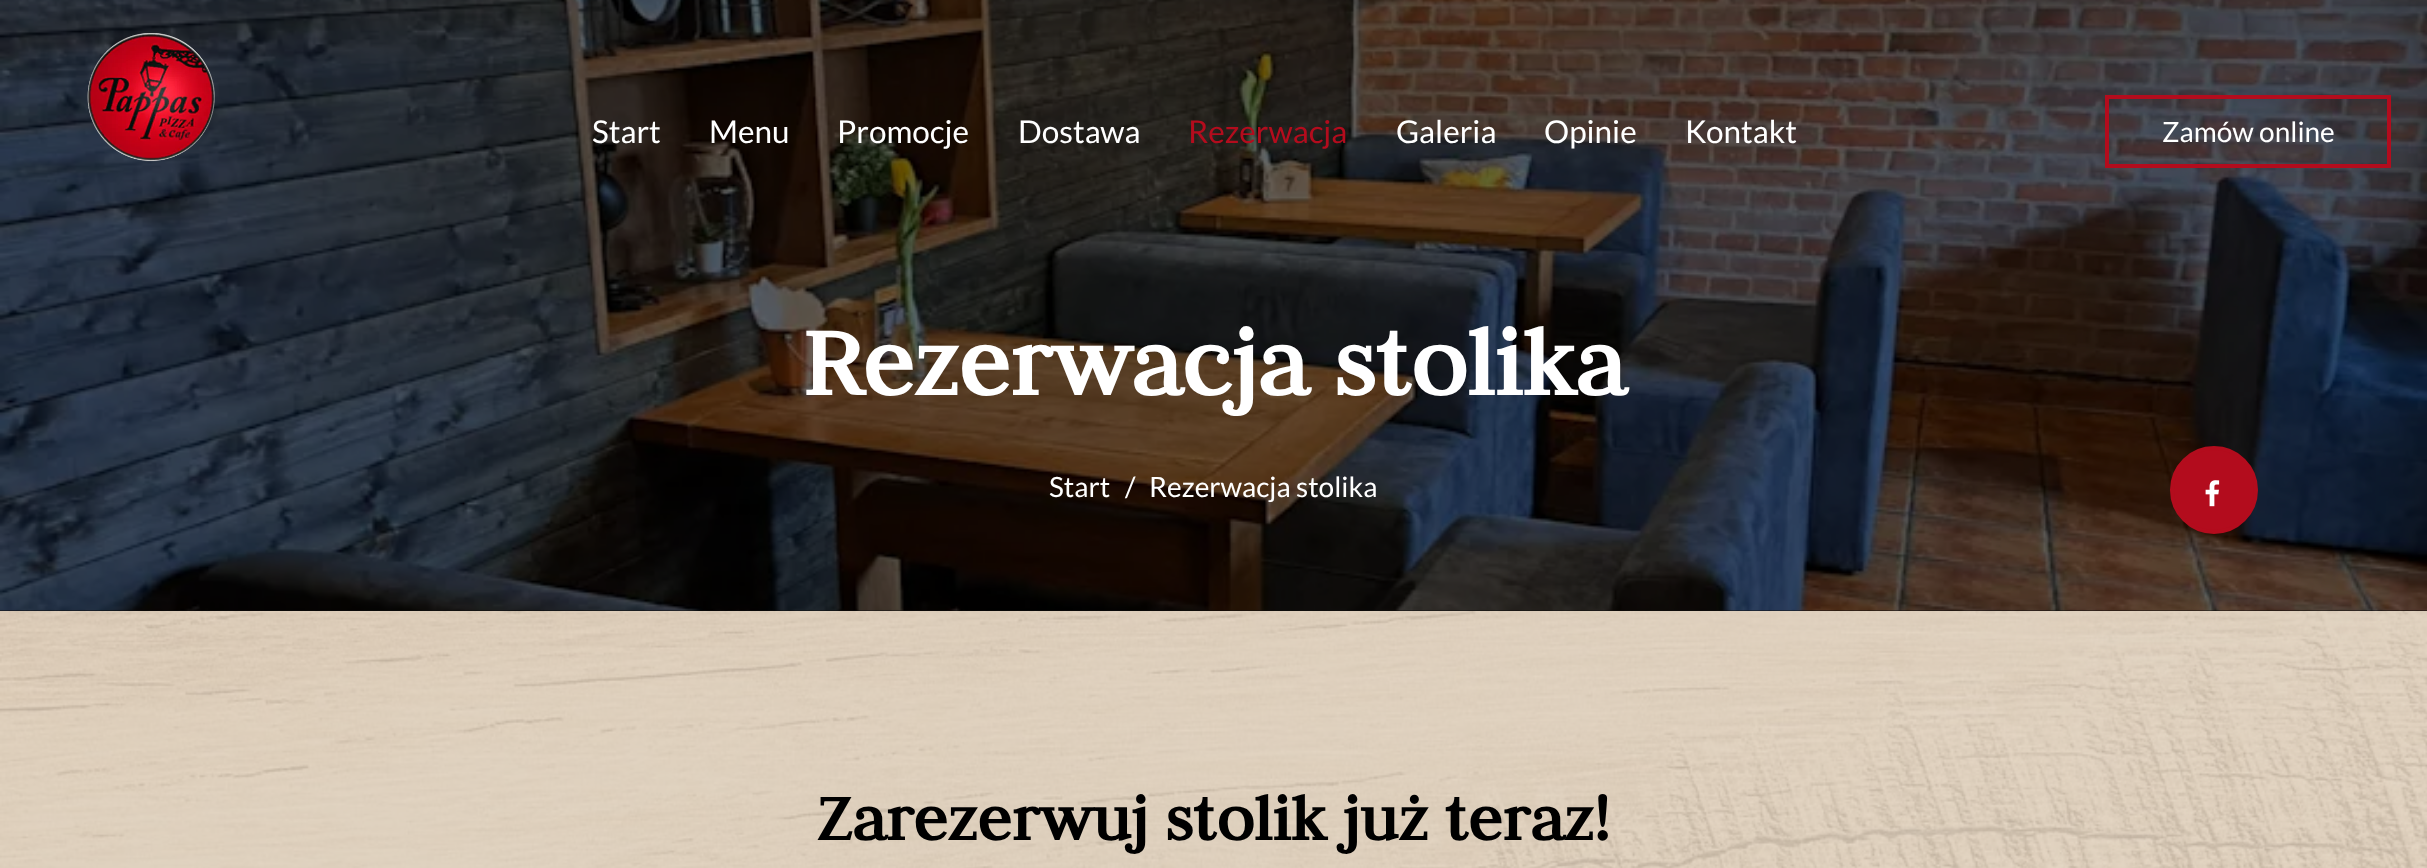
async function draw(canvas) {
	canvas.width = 2427;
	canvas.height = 868;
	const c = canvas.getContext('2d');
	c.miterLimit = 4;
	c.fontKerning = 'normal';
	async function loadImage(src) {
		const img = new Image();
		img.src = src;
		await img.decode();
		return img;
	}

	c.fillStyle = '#ded1be';
	c.fillRect(0, 0, 2427, 868);
	c.fillStyle = '#000';
	c.fillRect(0, 0, 2427, 611);
	c.drawImage(await loadImage('img2.png'), 0, 0, 2427, 611);
	c.drawImage(await loadImage('img1.png'), 87, 33, 128, 129);
	c.font = '31.5px Lato';
	c.fillStyle = '#fff';
	for (const [text, x, y] of [
		['Start', 592, 143],
		['Menu', 709, 143],
		['Promocje', 837, 143],
		['Dostawa', 1018, 143],
	]) {
		c.fillText(text, x, y);
	}
	c.fillStyle = '#b30c1d';
	c.fillText('Rezerwacja', 1188, 143);
	c.fillStyle = '#fff';
	for (const [text, x, y] of [
		['Galeria', 1396, 143],
		['Opinie', 1544, 143],
		['Kontakt', 1685, 143],
	]) {
		c.fillText(text, x, y);
	}
	c.strokeStyle = '#b30c1d';
	c.lineWidth = 4;
	c.strokeRect(2107, 97, 282, 69);
	c.font = '28px Lato';
	c.fillText('Zamów online', 2162, 142);
	c.font = 'bold 105px Judson';
	c.fillText('Rezerwacja stolika', 802, 395);
	c.font = '28px Lato';
	for (const [text, x, y] of [
		['Start', 1049, 497],
		['/', 1125, 497],
		['Rezerwacja stolika', 1149, 497],
	]) {
		c.fillText(text, x, y);
	}
	c.fillStyle = '#b30c1d';
	c.beginPath();
	c.arc(2214, 490, 42, 0, 2 * Math.PI);
	c.fill();
	c.stroke();
	c.drawImage(await loadImage('img3.png'), 2205, 480, 15, 27);
	c.drawImage(await loadImage('img4.png'), 0, 610, 2427, 258);
	c.font = 'bold 70px Judson';
	c.fillStyle = '#000';
	c.fillText('Zarezerwuj stolik już teraz!', 817, 840);
}

draw(document.querySelector('canvas'));
